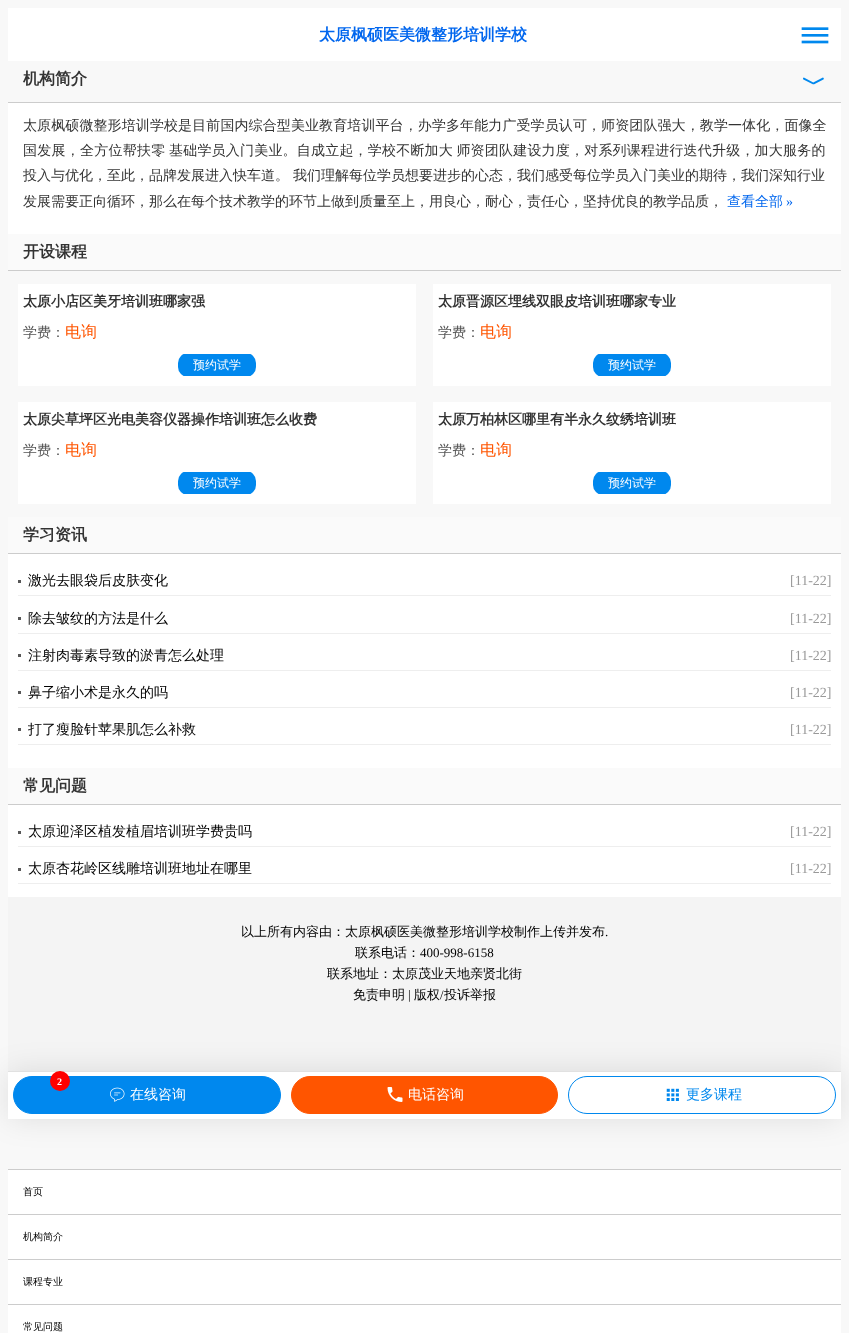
async function draw(canvas) {
	canvas.width = 849;
	canvas.height = 1333;
	const c = canvas.getContext('2d');
	c.miterLimit = 4;
	c.fontKerning = 'normal';
	async function loadImage(src) {
		const img = new Image();
		img.src = src;
		await img.decode();
		return img;
	}

	c.fillStyle = '#f8f8f8';
	c.fillRect(0, 0, 849, 1333);
	c.fillStyle = '#fff';
	c.fillRect(8, 8, 833, 53);
	c.font = 'bold 16px WenQuanYi Zen Hei';
	c.fillStyle = '#06e';
	c.fillText('太原枫硕医美微整形培训学校', 319, 40);
	c.drawImage(await loadImage('img1.png'), 801, 27, 28, 17);
	c.fillStyle = '#fff';
	c.fillRect(8, 103, 833, 794);
	c.fillStyle = '#ccc';
	c.fillRect(8, 102, 833, 1);
	c.fillStyle = '#333';
	c.fillText('机构简介', 23, 84);
	c.font = 'bold 24px WenQuanYi Zen Hei';
	c.fillStyle = '#08e';
	c.fillText('﹀', 802, 92);
	c.letterSpacing = '0.1px';
	c.font = '500 14px WenQuanYi Zen Hei';
	c.fillStyle = '#333';
	c.fillText('太原枫硕微整形培训学校是目前国内综合型美业教育培训平台，办学多年能力广受学员认可，师资团队强大，教学一体化，面像全', 23, 130);
	c.letterSpacing = '0.25px';
	c.fillText('国发展，全方位帮扶零', 23, 155);
	c.letterSpacing = '0.2px';
	c.wordSpacing = '-1px';
	c.fillText('基础学员入门美业。自成立起，学校不断加大 师资团队建设力度，对系列课程进行迭代升级，加大服务的', 169, 155);
	c.letterSpacing = '0px';
	c.wordSpacing = '0px';
	for (const [text, x, y] of [
		['投入与优化，至此，品牌发展进入快车道。', 23, 180],
		['我们理解每位学员想要进步的心态，我们感受每位学员入门美业的期待，我们深知行业', 293, 180],
		['发展需要正向循环，那么在每个技术教学的环节上做到质量至上，用良心，耐心，责任心，坚持优良的教学品质，', 23, 206],
	]) {
		c.fillText(text, x, y);
	}
	c.fillStyle = '#06e';
	c.fillText('查看全部', 727, 206);
	c.font = '14px Liberation Serif';
	c.fillText('»', 786, 206);
	c.fillStyle = '#fafafa';
	c.fillRect(8, 234, 833, 36);
	c.fillStyle = '#ccc';
	c.fillRect(8, 270, 833, 1);
	c.font = 'bold 16px WenQuanYi Zen Hei';
	c.fillStyle = '#333';
	c.fillText('开设课程', 23, 257);
	c.fillStyle = '#f8f8f8';
	c.fillRect(8, 271, 833, 246);
	c.fillStyle = '#fff';
	c.fillRect(18, 284, 398, 102);
	c.font = 'bold 14px WenQuanYi Zen Hei';
	c.fillStyle = '#333';
	c.fillText('太原小店区美牙培训班哪家强', 23, 306);
	c.font = '500 14px WenQuanYi Zen Hei';
	c.fillStyle = '#555';
	c.fillText('学费：', 23, 337);
	c.font = '500 16px WenQuanYi Zen Hei';
	c.fillStyle = '#f50';
	c.fillText('电询', 65, 337);
	c.save();
	c.beginPath();
	c.rect(23, 354, 388, 22);
	c.clip();
	c.fillStyle = '#08e';
	c.beginPath();
	c.roundRect(178, 353, 78, 24, 10);
	c.fill();
	c.restore();
	c.font = '500 12px WenQuanYi Zen Hei';
	c.fillStyle = '#fff';
	c.fillText('预约试学', 193, 369);
	c.fillRect(433, 284, 398, 102);
	c.font = 'bold 14px WenQuanYi Zen Hei';
	c.fillStyle = '#333';
	c.fillText('太原晋源区埋线双眼皮培训班哪家专业', 438, 306);
	c.font = '500 14px WenQuanYi Zen Hei';
	c.fillStyle = '#555';
	c.fillText('学费：', 438, 337);
	c.font = '500 16px WenQuanYi Zen Hei';
	c.fillStyle = '#f50';
	c.fillText('电询', 480, 337);
	c.save();
	c.beginPath();
	c.rect(438, 354, 388, 22);
	c.clip();
	c.fillStyle = '#08e';
	c.beginPath();
	c.roundRect(593, 353, 78, 24, 10);
	c.fill();
	c.restore();
	c.font = '500 12px WenQuanYi Zen Hei';
	c.fillStyle = '#fff';
	c.fillText('预约试学', 608, 369);
	c.fillRect(18, 402, 398, 102);
	c.font = 'bold 14px WenQuanYi Zen Hei';
	c.fillStyle = '#333';
	c.fillText('太原尖草坪区光电美容仪器操作培训班怎么收费', 23, 424);
	c.font = '500 14px WenQuanYi Zen Hei';
	c.fillStyle = '#555';
	c.fillText('学费：', 23, 455);
	c.font = '500 16px WenQuanYi Zen Hei';
	c.fillStyle = '#f50';
	c.fillText('电询', 65, 455);
	c.save();
	c.beginPath();
	c.rect(23, 472, 388, 22);
	c.clip();
	c.fillStyle = '#08e';
	c.beginPath();
	c.roundRect(178, 471, 78, 24, 10);
	c.fill();
	c.restore();
	c.font = '500 12px WenQuanYi Zen Hei';
	c.fillStyle = '#fff';
	c.fillText('预约试学', 193, 487);
	c.fillRect(433, 402, 398, 102);
	c.font = 'bold 14px WenQuanYi Zen Hei';
	c.fillStyle = '#333';
	c.fillText('太原万柏林区哪里有半永久纹绣培训班', 438, 424);
	c.font = '500 14px WenQuanYi Zen Hei';
	c.fillStyle = '#555';
	c.fillText('学费：', 438, 455);
	c.font = '500 16px WenQuanYi Zen Hei';
	c.fillStyle = '#f50';
	c.fillText('电询', 480, 455);
	c.save();
	c.beginPath();
	c.rect(438, 472, 388, 22);
	c.clip();
	c.fillStyle = '#08e';
	c.beginPath();
	c.roundRect(593, 471, 78, 24, 10);
	c.fill();
	c.restore();
	c.font = '500 12px WenQuanYi Zen Hei';
	c.fillStyle = '#fff';
	c.fillText('预约试学', 608, 487);
	c.fillStyle = '#fafafa';
	c.fillRect(8, 517, 833, 36);
	c.fillStyle = '#ccc';
	c.fillRect(8, 553, 833, 1);
	c.font = 'bold 16px WenQuanYi Zen Hei';
	c.fillStyle = '#333';
	c.fillText('学习资讯', 23, 540);
	c.fillStyle = '#eee';
	c.fillRect(18, 595, 813, 1);
	c.fillStyle = '#585858';
	c.fillRect(18, 580, 3, 3);
	c.font = '500 14px WenQuanYi Zen Hei';
	c.fillStyle = '#000';
	c.fillText('激光去眼袋后皮肤变化', 28, 585);
	c.font = '14px Liberation Serif';
	c.fillStyle = '#999';
	c.fillText('[11-22]', 790, 585);
	c.fillStyle = '#eee';
	c.fillRect(18, 633, 813, 1);
	c.fillStyle = '#585858';
	c.fillRect(18, 617, 3, 3);
	c.font = '500 14px WenQuanYi Zen Hei';
	c.fillStyle = '#000';
	c.fillText('除去皱纹的方法是什么', 28, 623);
	c.font = '14px Liberation Serif';
	c.fillStyle = '#999';
	c.fillText('[11-22]', 790, 623);
	c.fillStyle = '#eee';
	c.fillRect(18, 670, 813, 1);
	c.fillStyle = '#585858';
	c.fillRect(18, 654, 3, 3);
	c.font = '500 14px WenQuanYi Zen Hei';
	c.fillStyle = '#000';
	c.fillText('注射肉毒素导致的淤青怎么处理', 28, 660);
	c.font = '14px Liberation Serif';
	c.fillStyle = '#999';
	c.fillText('[11-22]', 790, 660);
	c.fillStyle = '#eee';
	c.fillRect(18, 707, 813, 1);
	c.fillStyle = '#585858';
	c.fillRect(18, 691, 3, 3);
	c.font = '500 14px WenQuanYi Zen Hei';
	c.fillStyle = '#000';
	c.fillText('鼻子缩小术是永久的吗', 28, 697);
	c.font = '14px Liberation Serif';
	c.fillStyle = '#999';
	c.fillText('[11-22]', 790, 697);
	c.fillStyle = '#eee';
	c.fillRect(18, 744, 813, 1);
	c.fillStyle = '#585858';
	c.fillRect(18, 728, 3, 3);
	c.font = '500 14px WenQuanYi Zen Hei';
	c.fillStyle = '#000';
	c.fillText('打了瘦脸针苹果肌怎么补救', 28, 734);
	c.font = '14px Liberation Serif';
	c.fillStyle = '#999';
	c.fillText('[11-22]', 790, 734);
	c.fillStyle = '#fafafa';
	c.fillRect(8, 768, 833, 36);
	c.fillStyle = '#ccc';
	c.fillRect(8, 804, 833, 1);
	c.font = 'bold 16px WenQuanYi Zen Hei';
	c.fillStyle = '#333';
	c.fillText('常见问题', 23, 791);
	c.fillStyle = '#eee';
	c.fillRect(18, 846, 813, 1);
	c.fillStyle = '#585858';
	c.fillRect(18, 831, 3, 3);
	c.font = '500 14px WenQuanYi Zen Hei';
	c.fillStyle = '#000';
	c.fillText('太原迎泽区植发植眉培训班学费贵吗', 28, 836);
	c.font = '14px Liberation Serif';
	c.fillStyle = '#999';
	c.fillText('[11-22]', 790, 836);
	c.fillStyle = '#eee';
	c.fillRect(18, 883, 813, 1);
	c.fillStyle = '#585858';
	c.fillRect(18, 868, 3, 3);
	c.font = '500 14px WenQuanYi Zen Hei';
	c.fillStyle = '#000';
	c.fillText('太原杏花岭区线雕培训班地址在哪里', 28, 873);
	c.font = '14px Liberation Serif';
	c.fillStyle = '#999';
	c.fillText('[11-22]', 790, 873);
	c.fillStyle = '#f4f4f4';
	c.fillRect(8, 897, 833, 174);
	c.font = '500 13px WenQuanYi Zen Hei';
	c.fillStyle = '#000';
	c.fillText('以上所有内容由：太原枫硕医美微整形培训学校制作上传并发布', 241, 936);
	c.font = '13px Liberation Serif';
	c.fillText('.', 605, 936);
	c.font = '500 13px WenQuanYi Zen Hei';
	c.fillText('联系电话：', 355, 957);
	c.font = '13px Liberation Serif';
	c.fillText('400-998-6158', 420, 957);
	c.font = '500 13px WenQuanYi Zen Hei';
	c.fillText('联系地址：太原茂业天地亲贤北街', 327, 978);
	c.fillText('免责申明', 353, 999);
	c.font = '13px Liberation Serif';
	c.fillText('|', 408, 999);
	c.font = '500 13px WenQuanYi Zen Hei';
	c.fillText('版权', 414, 999);
	c.font = '13px Liberation Serif';
	c.fillText('/', 440, 999);
	c.font = '500 13px WenQuanYi Zen Hei';
	c.fillText('投诉举报', 444, 999);
	c.fillStyle = '#0000001a';
	c.filter = 'blur(15px)';
	c.beginPath();
	c.rect(8, 1071, 833, 48);
	c.fill();
	c.filter = 'none';
	c.fillStyle = '#fff';
	c.fillRect(8, 1072, 833, 47);
	c.fillStyle = '#e1e1e1';
	c.fillRect(8, 1071, 833, 1);
	c.fillStyle = '#08e';
	c.beginPath();
	c.roundRect(13.5, 1076.5, 267, 37, 18.5);
	c.fill();
	c.strokeStyle = '#08e';
	c.stroke();
	c.fillStyle = '#f00';
	c.beginPath();
	c.arc(60, 1081, 10, 0, 2 * Math.PI);
	c.fill();
	c.font = 'bold 10px Liberation Serif';
	c.fillStyle = '#fff';
	c.fillText('2', 57, 1085);
	c.drawImage(await loadImage('img2.png'), 110, 1087, 15, 15);
	c.font = '500 14px WenQuanYi Zen Hei';
	c.fillText('在线咨询', 130, 1099);
	c.fillStyle = '#f50';
	c.beginPath();
	c.roundRect(291.5, 1076.5, 266, 37, 18.5);
	c.fill();
	c.strokeStyle = '#f50';
	c.stroke();
	c.drawImage(await loadImage('img3.png'), 387, 1087, 16, 15);
	c.fillStyle = '#fff';
	c.fillText('电话咨询', 408, 1099);
	c.beginPath();
	c.roundRect(568.5, 1076.5, 267, 37, 18.5);
	c.strokeStyle = '#08e';
	c.stroke();
	c.drawImage(await loadImage('img4.png'), 666, 1088, 13, 13);
	c.fillStyle = '#08e';
	c.fillText('更多课程', 686, 1099);
	c.fillStyle = '#fff';
	c.fillRect(8, 1170, 833, 163);
	c.fillStyle = '#ccc';
	c.fillRect(8, 1169, 833, 1);
	c.font = '500 10px WenQuanYi Zen Hei';
	c.fillStyle = '#000';
	c.fillText('首页', 23, 1195);
	c.fillStyle = '#ccc';
	c.fillRect(8, 1214, 833, 1);
	c.fillStyle = '#000';
	c.fillText('机构简介', 23, 1240);
	c.fillStyle = '#ccc';
	c.fillRect(8, 1259, 833, 1);
	c.fillStyle = '#000';
	c.fillText('课程专业', 23, 1285);
	c.fillStyle = '#ccc';
	c.fillRect(8, 1304, 833, 1);
	c.fillStyle = '#000';
	c.fillText('常见问题', 23, 1330);
}

draw(document.querySelector('canvas'));
